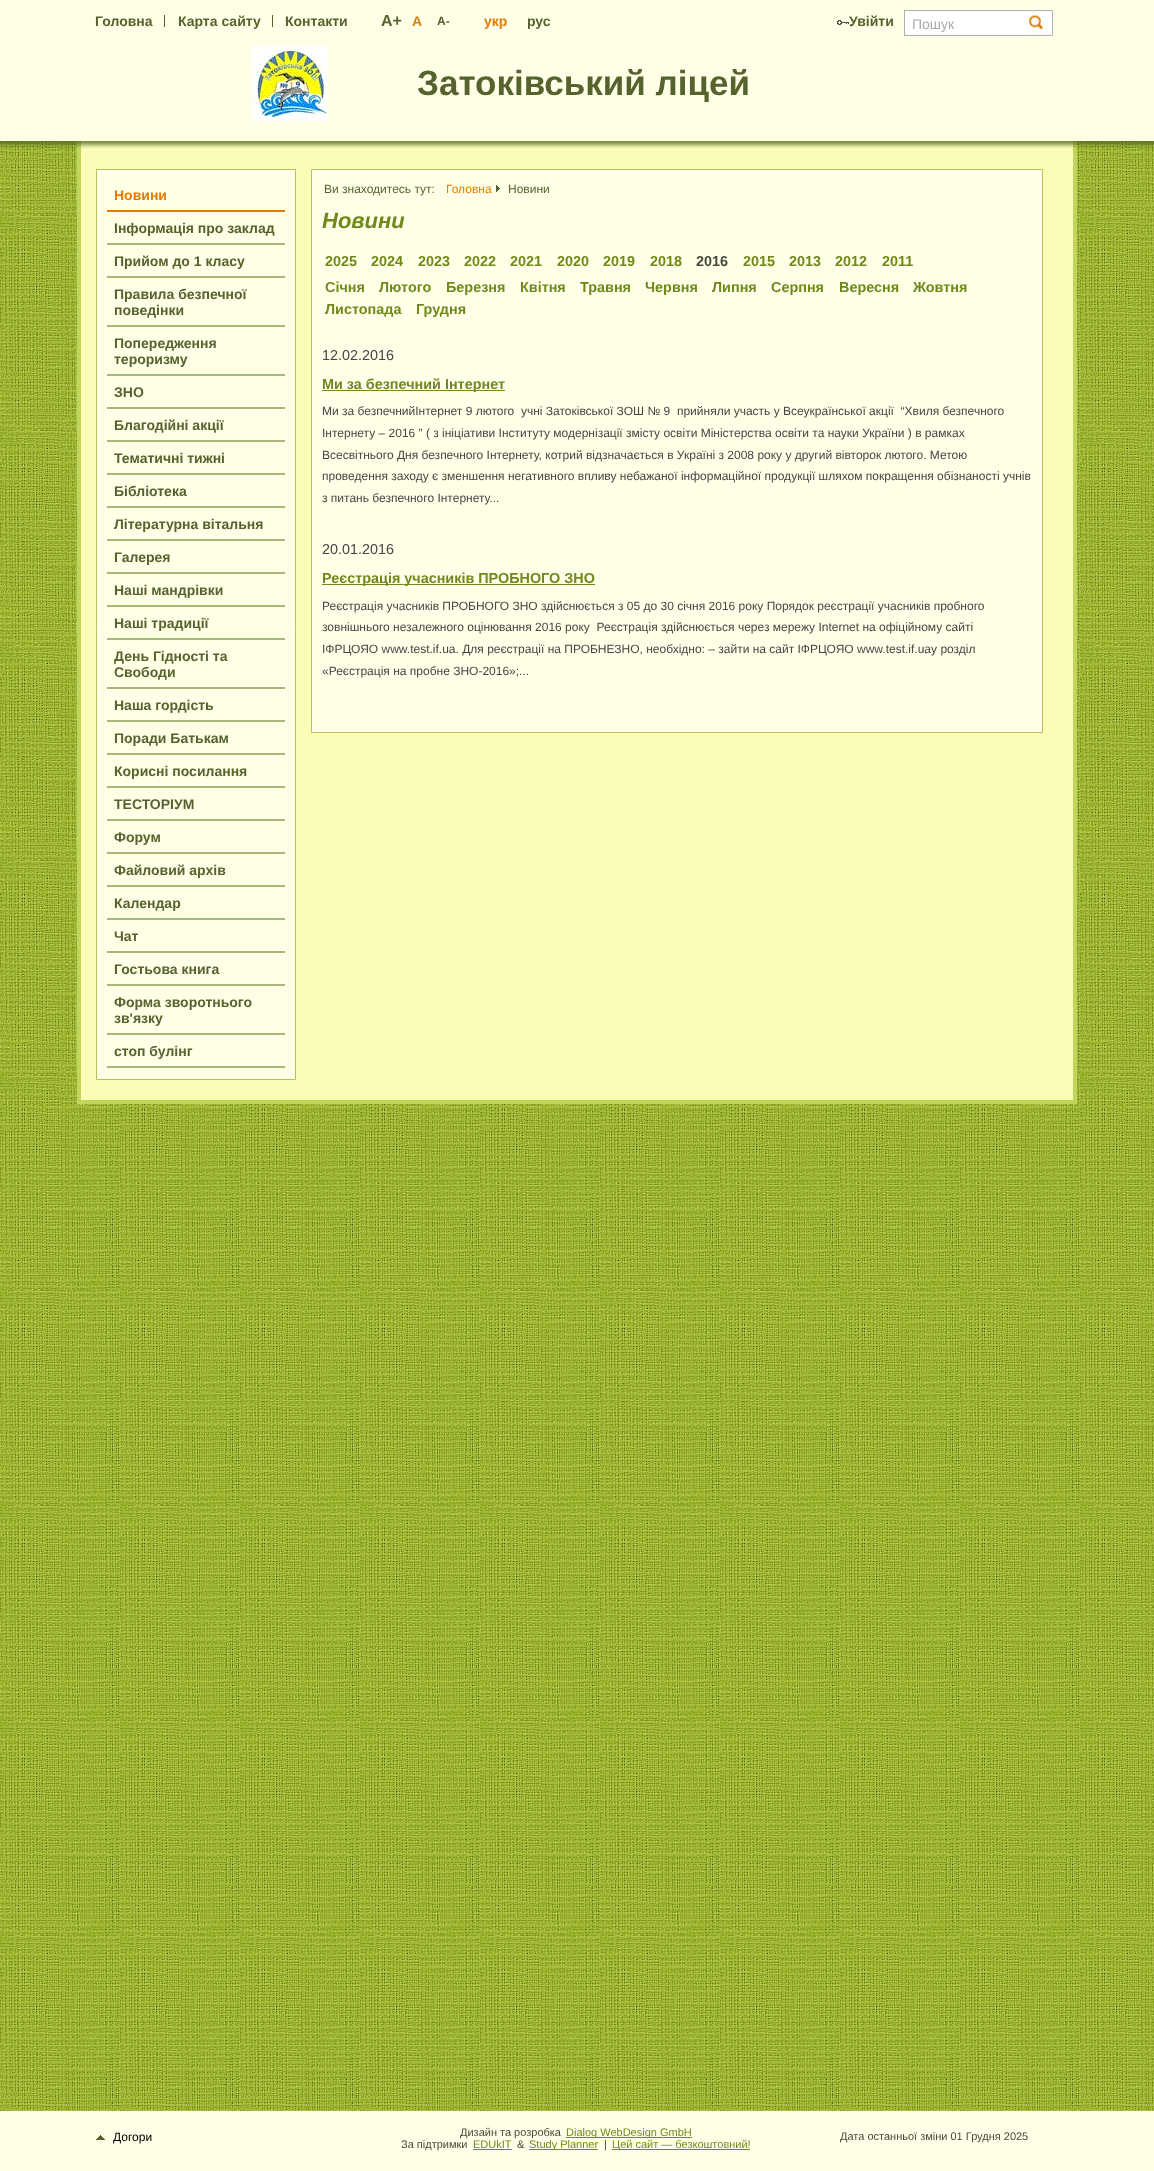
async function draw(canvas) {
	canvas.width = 1154;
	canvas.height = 2171;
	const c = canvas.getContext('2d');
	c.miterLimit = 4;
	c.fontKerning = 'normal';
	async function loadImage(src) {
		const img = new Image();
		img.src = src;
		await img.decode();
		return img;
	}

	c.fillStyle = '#fff';
	c.fillRect(0, 0, 1154, 2171);
	c.drawImage(await loadImage('img1.png'), 0, 141, 1154, 1970);
	c.fillStyle = '#ffffe7';
	c.fillRect(0, 0, 1154, 141);
	c.fillStyle = '#56632e';
	c.fillRect(164, 15, 1, 12);
	c.font = 'bold 14px Liberation Sans';
	c.fillStyle = '#56632d';
	c.fillText('Головна', 95, 26);
	c.fillStyle = '#56632e';
	c.fillRect(272, 15, 1, 12);
	c.fillStyle = '#56632d';
	c.fillText('Карта сайту', 178, 26);
	c.fillText('Контакти', 285, 26);
	c.font = 'bold 16px Liberation Sans';
	c.fillText('A+', 381, 26);
	c.font = 'bold 14px Liberation Sans';
	c.fillStyle = '#dc7f08';
	c.fillText('А', 412, 26);
	c.font = 'bold 12px Liberation Sans';
	c.fillStyle = '#56632d';
	c.fillText('A-', 437, 25);
	c.font = 'bold 14px Liberation Sans';
	c.fillStyle = '#dc7f08';
	c.fillText('укр', 484, 26);
	c.fillStyle = '#56632d';
	c.fillText('рус', 527, 26);
	c.drawImage(await loadImage('img2.png'), 837, 20, 12, 5);
	c.fillText('Увійти', 849, 26);
	for (const [x, y, w, h, color] of [
		[905, 11, 122, 24, '#fff'],
		[904, 10, 123, 1, '#afafae'],
		[904, 35, 123, 1, '#afafae'],
		[904, 10, 1, 26, '#afafae'],
	]) {
		c.fillStyle = color;
		c.fillRect(x, y, w, h);
	}
	c.font = '14px Liberation Sans';
	c.fillStyle = '#aaa';
	c.fillText('Пошук', 912, 29);
	c.drawImage(await loadImage('img3.png'), 1027, 10, 26, 26);
	c.drawImage(await loadImage('img4.png'), 252, 46, 76, 75);
	c.font = 'bold 35px Liberation Sans';
	c.fillStyle = '#56632d';
	c.fillText('Затоківський ліцей', 417, 95);
	for (const [x, y, w, h, color] of [
		[81, 141, 992, 959, '#fbfdb7'],
		[1073, 141, 4, 963, '#bfd55b'],
		[77, 1100, 1000, 4, '#bfd55b'],
		[77, 141, 4, 963, '#bfd55b'],
	]) {
		c.fillStyle = color;
		c.fillRect(x, y, w, h);
	}
	c.drawImage(await loadImage('img5.png'), 0, 141, 1154, 8);
	c.fillStyle = '#ffffe7';
	c.beginPath();
	c.rect(96.5, 169.5, 199, 910);
	c.fill();
	c.strokeStyle = '#b7c156';
	c.stroke();
	c.fillStyle = '#e57b01';
	c.fillRect(107, 210, 178, 2);
	c.font = 'bold 14px Liberation Sans';
	c.fillText('Новини', 114, 200);
	c.fillStyle = '#a9b679';
	c.fillRect(107, 243, 178, 2);
	c.fillStyle = '#56632d';
	c.fillText('Інформація про заклад', 114, 233);
	c.fillStyle = '#a9b679';
	c.fillRect(107, 276, 178, 2);
	c.fillStyle = '#56632d';
	c.fillText('Прийом до 1 класу', 114, 266);
	c.fillStyle = '#a9b679';
	c.fillRect(107, 325, 178, 2);
	c.fillStyle = '#56632d';
	c.fillText('Правила безпечної', 114, 299);
	c.fillText('поведінки', 114, 315);
	c.fillStyle = '#a9b679';
	c.fillRect(107, 374, 178, 2);
	c.fillStyle = '#56632d';
	c.fillText('Попередження', 114, 348);
	c.fillText('тероризму', 114, 364);
	c.fillStyle = '#a9b679';
	c.fillRect(107, 407, 178, 2);
	c.fillStyle = '#56632d';
	c.fillText('ЗНО', 114, 397);
	c.fillStyle = '#a9b679';
	c.fillRect(107, 440, 178, 2);
	c.fillStyle = '#56632d';
	c.fillText('Благодійні акції', 114, 430);
	c.fillStyle = '#a9b679';
	c.fillRect(107, 473, 178, 2);
	c.fillStyle = '#56632d';
	c.fillText('Тематичні тижні', 114, 463);
	c.fillStyle = '#a9b679';
	c.fillRect(107, 506, 178, 2);
	c.fillStyle = '#56632d';
	c.fillText('Бібліотека', 114, 496);
	c.fillStyle = '#a9b679';
	c.fillRect(107, 539, 178, 2);
	c.fillStyle = '#56632d';
	c.fillText('Літературна вітальня', 114, 529);
	c.fillStyle = '#a9b679';
	c.fillRect(107, 572, 178, 2);
	c.fillStyle = '#56632d';
	c.fillText('Галерея', 114, 562);
	c.fillStyle = '#a9b679';
	c.fillRect(107, 605, 178, 2);
	c.fillStyle = '#56632d';
	c.fillText('Наші мандрівки', 114, 595);
	c.fillStyle = '#a9b679';
	c.fillRect(107, 638, 178, 2);
	c.fillStyle = '#56632d';
	c.fillText('Наші традиції', 114, 628);
	c.fillStyle = '#a9b679';
	c.fillRect(107, 687, 178, 2);
	c.fillStyle = '#56632d';
	c.fillText('День Гідності та', 114, 661);
	c.fillText('Свободи', 114, 677);
	c.fillStyle = '#a9b679';
	c.fillRect(107, 720, 178, 2);
	c.fillStyle = '#56632d';
	c.fillText('Наша гордість', 114, 710);
	c.fillStyle = '#a9b679';
	c.fillRect(107, 753, 178, 2);
	c.fillStyle = '#56632d';
	c.fillText('Поради Батькам', 114, 743);
	c.fillStyle = '#a9b679';
	c.fillRect(107, 786, 178, 2);
	c.fillStyle = '#56632d';
	c.fillText('Корисні посилання', 114, 776);
	c.fillStyle = '#a9b679';
	c.fillRect(107, 819, 178, 2);
	c.fillStyle = '#56632d';
	c.fillText('ТЕСТОРІУМ', 114, 809);
	c.fillStyle = '#a9b679';
	c.fillRect(107, 852, 178, 2);
	c.fillStyle = '#56632d';
	c.fillText('Форум', 114, 842);
	c.fillStyle = '#a9b679';
	c.fillRect(107, 885, 178, 2);
	c.fillStyle = '#56632d';
	c.fillText('Файловий архів', 114, 875);
	c.fillStyle = '#a9b679';
	c.fillRect(107, 918, 178, 2);
	c.fillStyle = '#56632d';
	c.fillText('Календар', 114, 908);
	c.fillStyle = '#a9b679';
	c.fillRect(107, 951, 178, 2);
	c.fillStyle = '#56632d';
	c.fillText('Чат', 114, 941);
	c.fillStyle = '#a9b679';
	c.fillRect(107, 984, 178, 2);
	c.fillStyle = '#56632d';
	c.fillText('Гостьова книга', 114, 974);
	c.fillStyle = '#a9b679';
	c.fillRect(107, 1033, 178, 2);
	c.fillStyle = '#56632d';
	c.fillText('Форма зворотнього', 114, 1007);
	c.fillText('зв\'язку', 114, 1023);
	c.fillStyle = '#a9b679';
	c.fillRect(107, 1066, 178, 2);
	c.fillStyle = '#56632d';
	c.fillText('стоп булінг', 114, 1056);
	c.fillStyle = '#ffffe7';
	c.beginPath();
	c.rect(311.5, 169.5, 731, 563);
	c.fill();
	c.stroke();
	c.font = '12px Liberation Sans';
	c.fillStyle = '#56632d';
	c.fillText('Ви знаходитесь тут:', 324, 193);
	c.drawImage(await loadImage('img6.png'), 496, 185, 4, 7);
	c.fillStyle = '#e57b01';
	c.fillText('Головна', 446, 193);
	c.fillStyle = '#56632d';
	c.fillText('Новини', 508, 193);
	c.font = 'italic bold 22px Liberation Sans';
	c.fillStyle = '#70891b';
	c.fillText('Новини', 322, 228);
	c.font = 'bold 14.4px Liberation Sans';
	for (const [text, x, y] of [
		['2025', 325, 266],
		['2024', 371, 266],
		['2023', 418, 266],
		['2022', 464, 266],
		['2021', 510, 266],
		['2020', 557, 266],
		['2019', 603, 266],
		['2018', 650, 266],
	]) {
		c.fillText(text, x, y);
	}
	c.fillStyle = '#47493b';
	c.fillText('2016', 696, 266);
	c.fillStyle = '#70891b';
	for (const [text, x, y] of [
		['2015', 743, 266],
		['2013', 789, 266],
		['2012', 835, 266],
		['2011', 882, 266],
		['Січня', 325, 292],
		['Лютого', 379, 292],
		['Березня', 446, 292],
		['Квітня', 520, 292],
		['Травня', 580, 292],
		['Червня', 645, 292],
		['Липня', 712, 292],
		['Серпня', 771, 292],
		['Вересня', 839, 292],
		['Жовтня', 913, 292],
		['Листопада', 325, 314],
		['Грудня', 416, 314],
	]) {
		c.fillText(text, x, y);
	}
	c.font = '14.4px Liberation Sans';
	c.fillStyle = '#464645';
	c.fillText('12.02.2016', 322, 360);
	c.fillStyle = '#70891b';
	c.fillRect(322, 390, 183, 1);
	c.font = 'bold 14.4px Liberation Sans';
	c.fillText('Ми за безпечний Інтернет', 322, 389);
	c.font = '12px Liberation Sans';
	c.fillStyle = '#464645';
	for (const [text, x, y] of [
		['Ми за безпечнийІнтернет 9 лютого  учні Затоківської ЗОШ № 9  прийняли участь у Всеукраїнської акції  “Хвиля безпечного', 322, 415],
		['Інтернету – 2016 ” ( з ініціативи Інституту модернізації змісту освіти Міністерства освіти та науки України ) в рамках', 322, 437],
		['Всесвітнього Дня безпечного Інтернету, котрий відзначається в Україні з 2008 року у другий вівторок лютого. Метою', 322, 459],
		['проведення заходу є зменшення негативного впливу небажаної інформаційної продукції шляхом покращення обізнаності учнів', 322, 480],
		['з питань безпечного Інтернету...', 322, 502],
	]) {
		c.fillText(text, x, y);
	}
	c.font = '14.4px Liberation Sans';
	c.fillText('20.01.2016', 322, 554);
	c.fillStyle = '#70891b';
	c.fillRect(322, 584, 273, 1);
	c.font = 'bold 14.4px Liberation Sans';
	c.fillText('Реєстрація учасників ПРОБНОГО ЗНО', 322, 583);
	c.font = '12px Liberation Sans';
	c.fillStyle = '#464645';
	for (const [text, x, y] of [
		['Реєстрація учасників ПРОБНОГО ЗНО здійснюється з 05 до 30 січня 2016 року Порядок реєстрації учасників пробного', 322, 610],
		['зовнішнього незалежного оцінювання 2016 року  Реєстрація здійснюється через мережу Internet на офіційному сайті', 322, 631],
		['ІФРЦОЯО www.test.if.ua. Для реєстрації на ПРОБНЕЗНО, необхідно: – зайти на сайт ІФРЦОЯО www.test.if.uaу розділ', 322, 653],
		['«Реєстрація на пробне ЗНО-2016»;...', 322, 675],
	]) {
		c.fillText(text, x, y);
	}
	c.fillStyle = '#ffffe7';
	c.fillRect(0, 2111, 1154, 60);
	c.drawImage(await loadImage('img7.png'), 96, 2135, 9, 5);
	c.fillStyle = '#000';
	c.fillText('Догори', 113, 2141);
	c.font = '11px Liberation Sans';
	c.fillStyle = '#47493b';
	c.fillText('Дизайн та розробка', 460, 2136);
	c.fillStyle = '#70891b';
	c.fillRect(566, 2137, 126, 1);
	c.fillText('Dialog WebDesign GmbH', 566, 2136);
	c.fillStyle = '#47493b';
	c.fillText('За підтримки', 401, 2148);
	c.fillStyle = '#70891b';
	c.fillText('EDUkIT', 473, 2148);
	c.fillRect(473, 2149, 39, 1);
	c.fillStyle = '#47493b';
	c.fillText('&', 517, 2148);
	c.fillStyle = '#70891b';
	c.fillRect(529, 2149, 69, 1);
	c.fillText('Study Planner', 529, 2148);
	c.fillStyle = '#47493b';
	c.fillText('|', 604, 2148);
	c.fillStyle = '#70891b';
	c.fillRect(612, 2149, 138, 1);
	c.fillText('Цей сайт — безкоштовний!', 612, 2148);
	c.fillStyle = '#47493b';
	c.fillText('Дата останньої зміни 01 Грудня 2025', 840, 2140);
}

draw(document.querySelector('canvas'));
